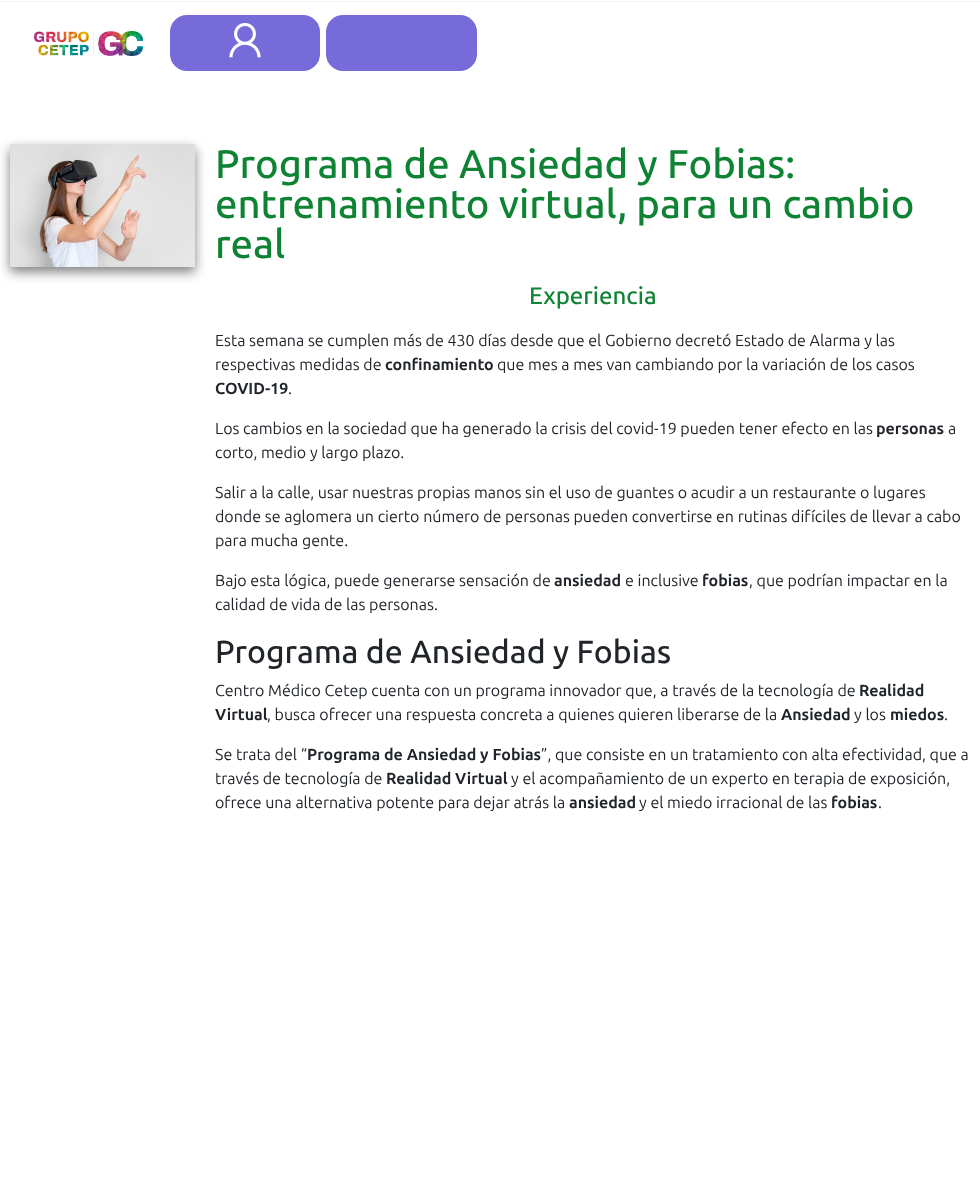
async function draw(canvas) {
	canvas.width = 980;
	canvas.height = 1178;
	const c = canvas.getContext('2d');
	c.miterLimit = 4;
	c.fontKerning = 'normal';
	async function loadImage(src) {
		const img = new Image();
		img.src = src;
		await img.decode();
		return img;
	}

	c.fillStyle = '#fff';
	c.fillRect(0, 0, 980, 1178);
	c.fillStyle = '#f3f2fc';
	c.fillRect(0, 1, 980, 1);
	c.drawImage(await loadImage('img1.png'), 34, 31, 109, 25);
	c.fillStyle = '#776ad9';
	c.beginPath();
	c.roundRect(168.5, 13.5, 153, 59, 18.5);
	c.fill();
	c.strokeStyle = '#fff';
	c.lineWidth = 3;
	c.stroke();
	c.drawImage(await loadImage('img2.png'), 229, 23, 32, 35);
	c.beginPath();
	c.roundRect(324.5, 13.5, 154, 59, 18.5);
	c.fill();
	c.stroke();
	c.fillStyle = '#00000080';
	c.filter = 'blur(6px)';
	c.beginPath();
	c.rect(10, 149, 185, 123);
	c.fill();
	c.filter = 'none';
	c.drawImage(await loadImage('img3.png'), 10, 144, 185, 123);
	c.font = '500 40px Ubuntu';
	c.fillStyle = '#0e8333';
	for (const [text, x, y] of [
		['Programa de Ansiedad y Fobias:', 215, 178],
		['entrenamiento virtual, para un cambio', 215, 218],
		['real', 215, 258],
	]) {
		c.fillText(text, x, y);
	}
	c.font = '500 24px Ubuntu';
	c.fillText('Experiencia', 529, 304);
	c.font = '16px Ubuntu';
	c.fillStyle = '#212529';
	c.fillText('Esta semana se cumplen más de 430 días desde que el Gobierno decretó Estado de Alarma y las', 215, 346);
	c.fillText('respectivas medidas de', 215, 370);
	c.font = 'bold 16px Ubuntu';
	c.fillText('confinamiento', 385, 370);
	c.font = '16px Ubuntu';
	c.fillText('que mes a mes van cambiando por la variación de los casos', 497, 370);
	c.font = 'bold 16px Ubuntu';
	c.fillText('COVID-19', 215, 394);
	c.font = '16px Ubuntu';
	c.fillText('.', 288, 394);
	c.fillText('Los cambios en la sociedad que ha generado la crisis del covid-19 pueden tener efecto en las', 215, 434);
	c.font = 'bold 16px Ubuntu';
	c.fillText('personas', 876, 434);
	c.font = '16px Ubuntu';
	for (const [text, x, y] of [
		['a', 948, 434],
		['corto, medio y largo plazo.', 215, 458],
		['Salir a la calle, usar nuestras propias manos sin el uso de guantes o acudir a un restaurante o lugares', 215, 498],
		['donde se aglomera un cierto número de personas pueden convertirse en rutinas difíciles de llevar a cabo', 215, 522],
		['para mucha gente.', 215, 546],
		['Bajo esta lógica, puede generarse sensación de', 215, 586],
	]) {
		c.fillText(text, x, y);
	}
	c.font = 'bold 16px Ubuntu';
	c.fillText('ansiedad', 554, 586);
	c.font = '16px Ubuntu';
	c.fillText('e inclusive', 625, 586);
	c.font = 'bold 16px Ubuntu';
	c.fillText('fobias', 702, 586);
	c.font = '16px Ubuntu';
	c.fillText(', que podrían impactar en la', 749, 586);
	c.fillText('calidad de vida de las personas.', 215, 610);
	c.font = '500 32px Ubuntu';
	c.fillText('Programa de Ansiedad y Fobias', 215, 663);
	c.font = '16px Ubuntu';
	c.fillText('Centro Médico Cetep cuenta con un programa innovador que, a través de la tecnología de', 215, 696);
	c.font = 'bold 16px Ubuntu';
	c.fillText('Realidad', 859, 696);
	c.fillText('Virtual', 215, 720);
	c.font = '16px Ubuntu';
	c.fillText(', busca ofrecer una respuesta concreta a quienes quieren liberarse de la', 267, 720);
	c.font = 'bold 16px Ubuntu';
	c.fillText('Ansiedad', 781, 720);
	c.font = '16px Ubuntu';
	c.fillText('y los', 854, 720);
	c.font = 'bold 16px Ubuntu';
	c.fillText('miedos', 890, 720);
	c.font = '16px Ubuntu';
	c.fillText('.', 944, 720);
	c.fillText('Se trata del “', 215, 760);
	c.font = 'bold 16px Ubuntu';
	c.fillText('Programa de Ansiedad y Fobias', 307, 760);
	c.font = '16px Ubuntu';
	c.fillText('”, que consiste en un tratamiento con alta efectividad, que a', 541, 760);
	c.fillText('través de tecnología de', 215, 784);
	c.font = 'bold 16px Ubuntu';
	c.fillText('Realidad Virtual', 386, 784);
	c.font = '16px Ubuntu';
	c.fillText('y el acompañamiento de un experto en terapia de exposición,', 511, 784);
	c.fillText('ofrece una alternativa potente para dejar atrás la', 215, 808);
	c.font = 'bold 16px Ubuntu';
	c.fillText('ansiedad', 569, 808);
	c.font = '16px Ubuntu';
	c.fillText('y el miedo irracional de las', 639, 808);
	c.font = 'bold 16px Ubuntu';
	c.fillText('fobias', 831, 808);
	c.font = '16px Ubuntu';
	c.fillText('.', 878, 808);
}

draw(document.querySelector('canvas'));
